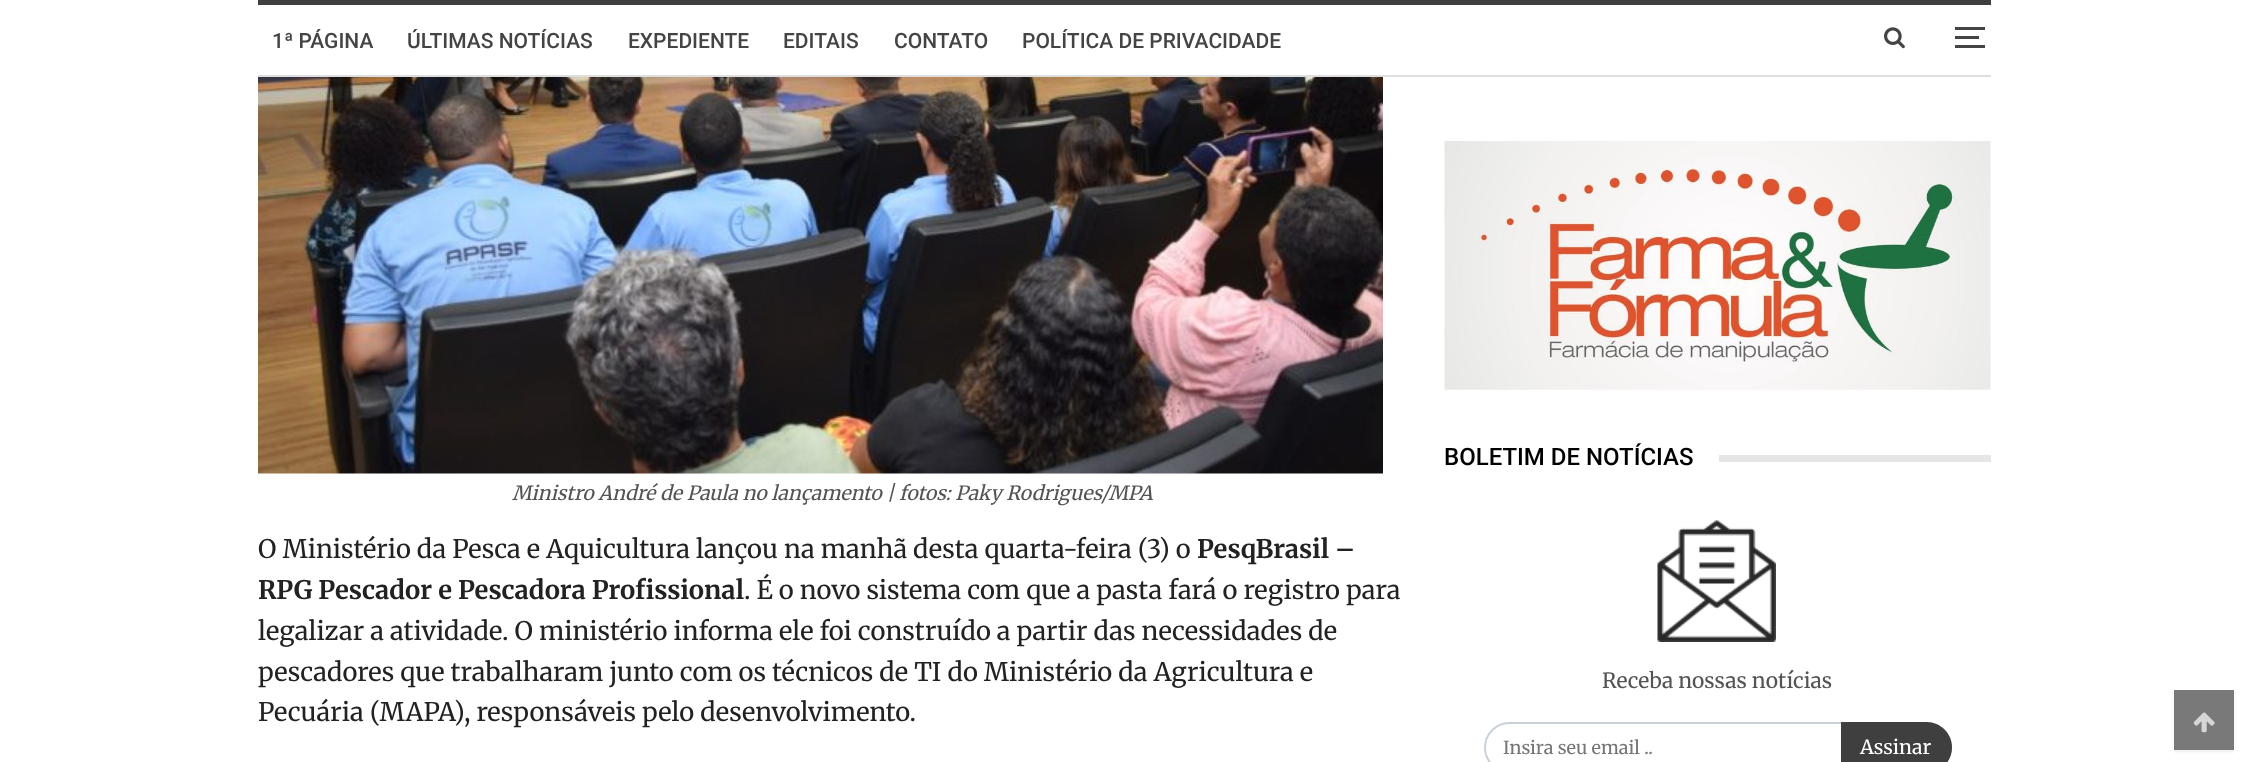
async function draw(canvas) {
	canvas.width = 2248;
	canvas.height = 762;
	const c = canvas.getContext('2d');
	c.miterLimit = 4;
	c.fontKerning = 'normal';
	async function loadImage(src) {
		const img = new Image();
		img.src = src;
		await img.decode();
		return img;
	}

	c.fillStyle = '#fff';
	c.fillRect(0, 0, 2248, 762);
	c.fillStyle = '#3f3f3f';
	c.fillRect(258, 0, 1733, 5);
	c.fillStyle = '#dedede';
	c.fillRect(258, 75, 1733, 2);
	c.font = '500 21px Roboto';
	c.fillStyle = '#444';
	for (const [text, x, y] of [
		['1ª PÁGINA', 272, 48],
		['ÚLTIMAS NOTÍCIAS', 407, 48],
		['EXPEDIENTE', 628, 48],
		['EDITAIS', 783, 48],
		['CONTATO', 894, 48],
		['POLÍTICA DE PRIVACIDADE', 1022, 48],
	]) {
		c.fillText(text, x, y);
	}
	c.drawImage(await loadImage('img1.png'), 1884, 27, 21, 22);
	for (const [x, y, w, h, color] of [
		[1955, 36, 24, 3, '#444'],
		[1955, 27, 30, 3, '#444'],
		[1955, 45, 30, 3, '#444'],
	]) {
		c.fillStyle = color;
		c.fillRect(x, y, w, h);
	}
	c.drawImage(await loadImage('img2.png'), 258, 77, 1125, 397);
	c.font = 'italic 19.5px Merriweather';
	c.fillStyle = '#545454';
	c.fillText('Ministro André de Paula no lançamento | fotos: Paky Rodrigues/MPA', 512, 500);
	c.font = '25.5px Merriweather';
	c.fillStyle = '#222';
	c.fillText('O Ministério da Pesca e Aquicultura lançou na manhã desta quarta-feira (3) o', 258, 558);
	c.font = 'bold 25.5px Merriweather';
	c.fillText('PesqBrasil –', 1197, 558);
	c.fillText('RPG Pescador e Pescadora Profissional', 258, 599);
	c.font = '25.5px Merriweather';
	for (const [text, x, y] of [
		['. É o novo sistema com que a pasta fará o registro para', 744, 599],
		['legalizar a atividade. O ministério informa ele foi construído a partir das necessidades de', 258, 640],
		['pescadores que trabalharam junto com os técnicos de TI do Ministério da Agricultura e', 258, 681],
		['Pecuária (MAPA), responsáveis pelo desenvolvimento.', 258, 721],
	]) {
		c.fillText(text, x, y);
	}
	c.drawImage(await loadImage('img3.png'), 1444, 141, 547, 249);
	c.font = '500 24px Roboto';
	c.fillStyle = '#000';
	c.fillText('BOLETIM DE NOTÍCIAS', 1444, 465);
	c.fillStyle = '#e6e6e6';
	c.fillRect(1719, 455, 272, 7);
	c.drawImage(await loadImage('img4.png'), 1657, 520, 119, 122);
	c.font = '21px Merriweather';
	c.fillStyle = '#545454';
	c.fillText('Receba nossas notícias', 1602, 688);
	c.beginPath();
	c.roundRect(1485, 723, 466, 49, 24.5);
	c.strokeStyle = '#cbd1d8';
	c.lineWidth = 2;
	c.stroke();
	c.font = '18px Merriweather';
	c.fillStyle = '#757575';
	c.fillText('Insira seu email ..', 1503, 754);
	c.fillStyle = '#3f3f3f';
	c.beginPath();
	c.moveTo(1841, 722);
	c.lineTo(1926.5, 722);
	c.bezierCurveTo(1940.5, 722, 1952, 733.5, 1952, 747.5);
	c.bezierCurveTo(1952, 761.5, 1940.5, 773, 1926.5, 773);
	c.lineTo(1841, 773);
	c.closePath();
	c.fill();
	c.font = '19.5px Merriweather';
	c.fillStyle = '#fff';
	c.fillText('Assinar', 1860, 754);
	c.fillStyle = '#4d4d4d17';
	c.filter = 'blur(1.5px)';
	c.beginPath();
	c.rect(2174, 692, 60, 60);
	c.fill();
	c.filter = 'none';
	c.fillStyle = '#797979';
	c.fillRect(2174, 690, 60, 60);
	c.drawImage(await loadImage('img5.png'), 2193, 712, 22, 21);
}

draw(document.querySelector('canvas'));
